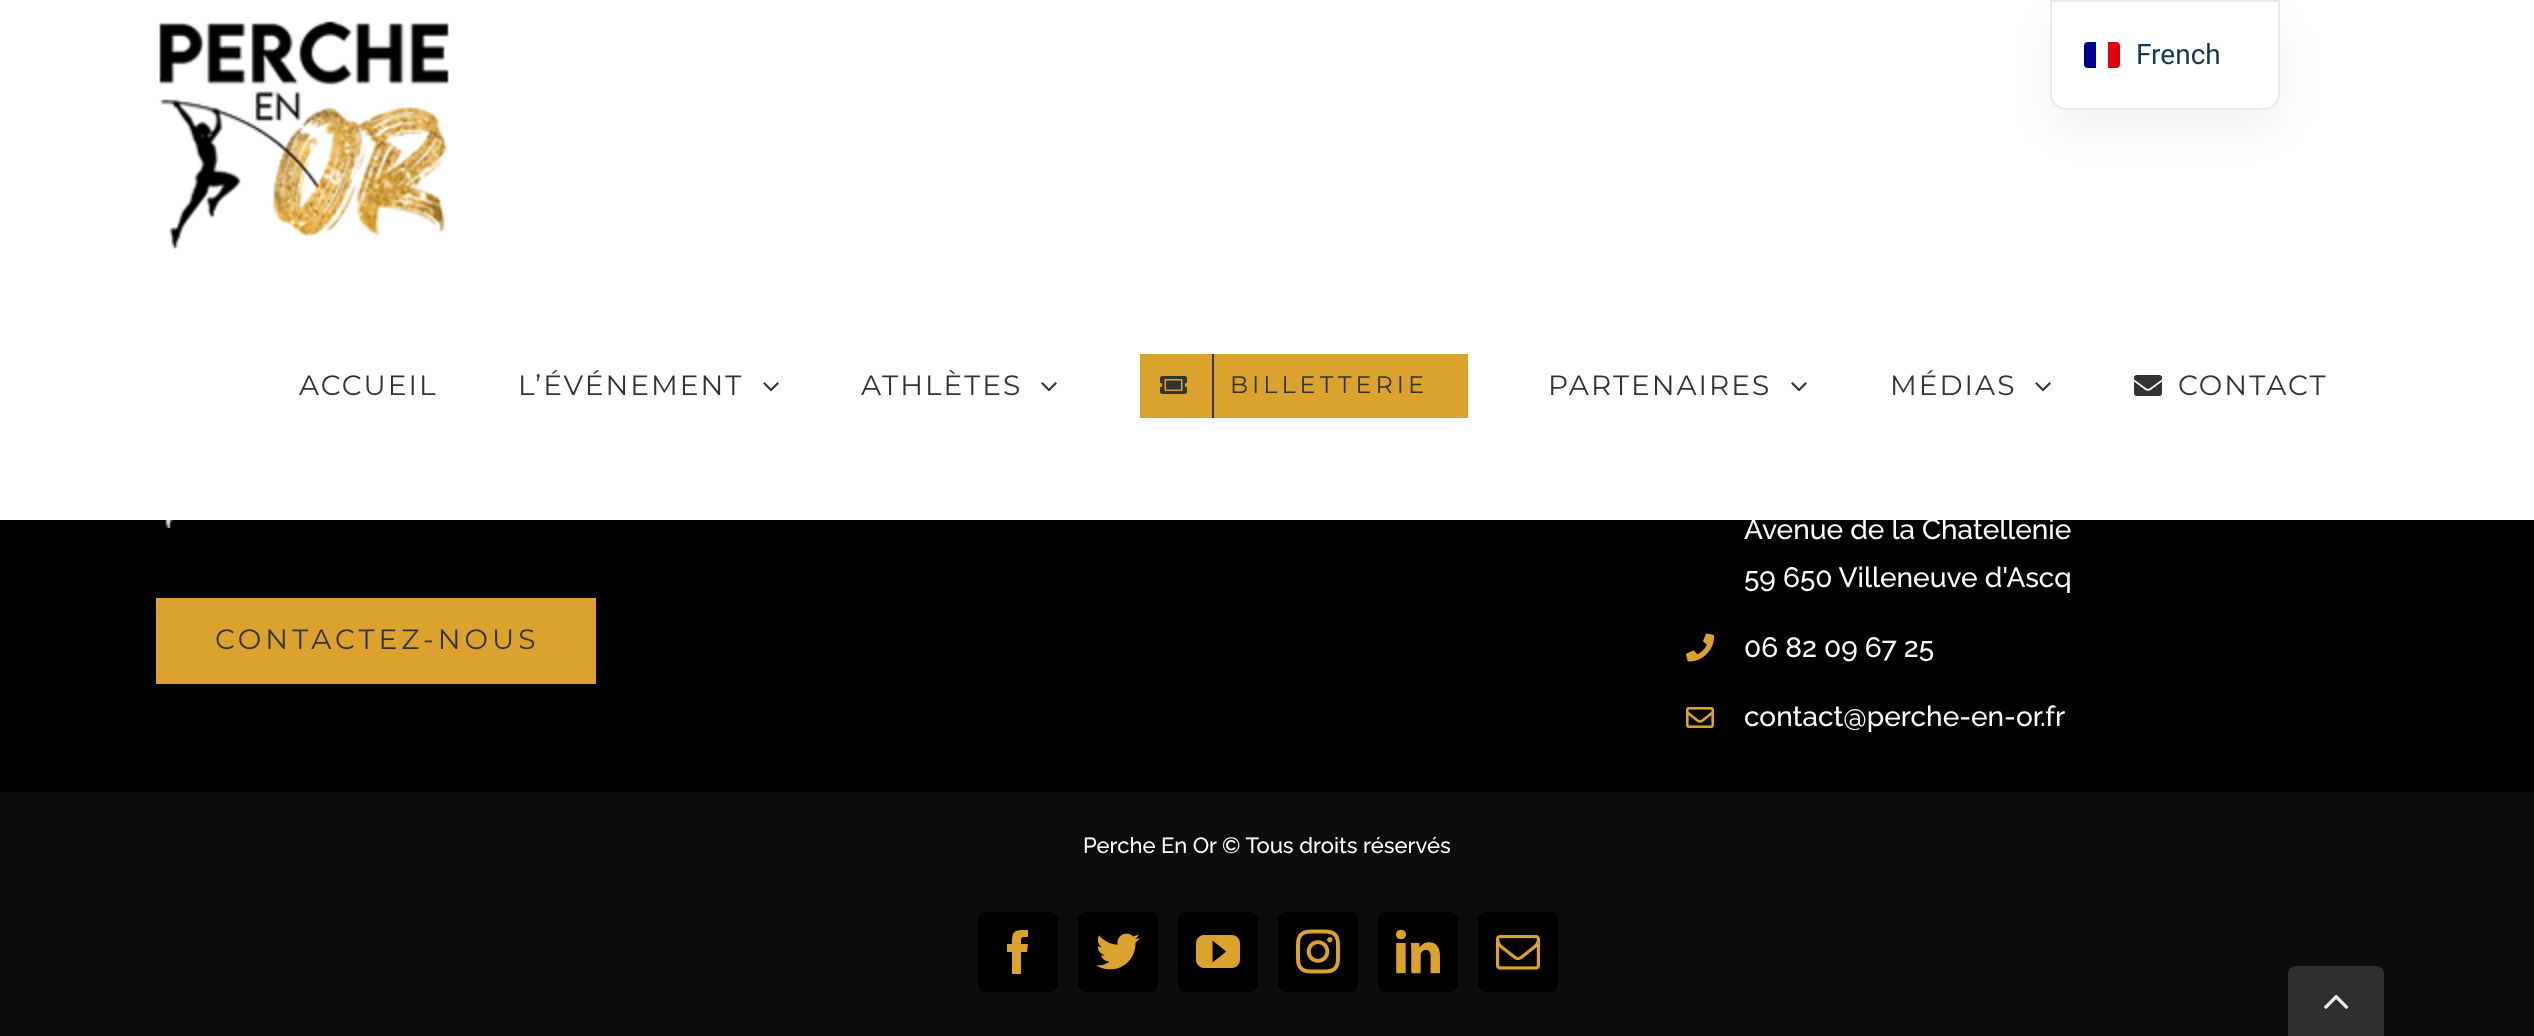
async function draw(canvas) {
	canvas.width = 2534;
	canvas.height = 1036;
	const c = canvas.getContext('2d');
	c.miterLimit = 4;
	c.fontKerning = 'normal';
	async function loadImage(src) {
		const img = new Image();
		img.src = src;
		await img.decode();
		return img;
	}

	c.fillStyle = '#000';
	c.fillRect(0, 0, 2534, 1036);
	c.drawImage(await loadImage('img5.png'), 165, 520, 8, 8);
	c.fillStyle = '#0000001f';
	c.filter = 'blur(3px)';
	c.beginPath();
	c.rect(0, 2, 2534, 520);
	c.fill();
	c.filter = 'none';
	c.fillStyle = '#fff';
	c.fillRect(0, 0, 2534, 520);
	c.fillStyle = '#0000000d';
	c.filter = 'blur(20px)';
	c.beginPath();
	c.roundRect(2050, 20, 230, 110, 16);
	c.fill();
	c.filter = 'none';
	c.fillStyle = '#fff';
	c.beginPath();
	c.roundRect(2051, 1, 228, 108, [0, 0, 15, 15]);
	c.fill();
	c.strokeStyle = '#e7ebee';
	c.lineWidth = 2;
	c.stroke();
	c.fillStyle = '#000091';
	c.beginPath();
	c.roundRect(2084, 42, 12, 26, [4, 0, 0, 4]);
	c.fill();
	c.fillStyle = '#e1000f';
	c.beginPath();
	c.roundRect(2108, 42, 12, 26, [0, 4, 4, 0]);
	c.fill();
	c.font = '28px Roboto';
	c.fillStyle = '#143852';
	c.fillText('French', 2136, 64);
	c.drawImage(await loadImage('img1.png'), 159, 21, 290, 228);
	c.letterSpacing = '2px';
	c.font = '28px Montserrat';
	c.fillStyle = '#333';
	c.fillText('ACCUEIL', 299, 395);
	c.fillText('L’ÉVÉNEMENT', 518, 395);
	c.drawImage(await loadImage('img2.png'), 763, 382, 16, 10);
	c.fillText('ATHLÈTES', 861, 395);
	c.drawImage(await loadImage('img2.png'), 1041, 382, 16, 10);
	c.fillStyle = '#dca22e';
	c.fillRect(1140, 354, 328, 64);
	c.fillStyle = '#333';
	c.fillRect(1212, 354, 2, 64);
	c.drawImage(await loadImage('img3.png'), 1160, 376, 27, 18);
	c.letterSpacing = '4px';
	c.font = '24px Montserrat';
	c.fillText('BILLETTERIE', 1230, 393);
	c.letterSpacing = '2px';
	c.font = '28px Montserrat';
	c.fillText('PARTENAIRES', 1548, 395);
	c.drawImage(await loadImage('img2.png'), 1791, 382, 16, 10);
	c.fillText('MÉDIAS', 1890, 395);
	c.drawImage(await loadImage('img2.png'), 2035, 382, 16, 10);
	c.drawImage(await loadImage('img4.png'), 2134, 375, 28, 21);
	c.fillText('CONTACT', 2178, 395);
	c.fillStyle = '#dca22e';
	c.fillRect(156, 598, 440, 86);
	c.letterSpacing = '4px';
	c.fillStyle = '#333';
	c.fillText('CONTACTEZ-NOUS', 215, 649);
	c.letterSpacing = '0px';
	c.font = '500 28px Raleway';
	c.fillStyle = '#fff';
	c.fillText('Avenue de la Chatellenie', 1744, 539);
	c.fillText('59 650 Villeneuve d\'Ascq', 1744, 587);
	c.drawImage(await loadImage('img6.png'), 1686, 633, 29, 29);
	c.fillText('06 82 09 67 25', 1744, 657);
	c.drawImage(await loadImage('img7.png'), 1686, 707, 28, 21);
	c.fillText('contact@perche-en-or.fr', 1744, 726);
	c.fillStyle = '#0c0c0c';
	c.fillRect(0, 792, 2534, 244);
	c.font = '500 22px Raleway';
	c.fillStyle = '#fff';
	c.fillText('Perche En Or © Tous droits réservés', 1083, 853);
	c.fillStyle = '#000';
	c.beginPath();
	c.roundRect(979, 913, 78, 78, 7);
	c.fill();
	c.strokeStyle = '#000';
	c.stroke();
	c.fillStyle = '#dca22e';
	c.beginPath();
	c.moveTo(1021, 974);
	c.lineTo(1012, 974);
	c.lineTo(1012, 952);
	c.lineTo(1007, 952);
	c.lineTo(1007, 944);
	c.lineTo(1012, 944);
	c.bezierCurveTo(1012, 930, 1014, 930, 1028, 930);
	c.lineTo(1028, 937);
	c.bezierCurveTo(1020, 937, 1021, 937, 1021, 944);
	c.lineTo(1028, 944);
	c.lineTo(1027, 952);
	c.lineTo(1021, 952);
	c.closePath();
	c.fill();
	c.fillStyle = '#000';
	c.beginPath();
	c.roundRect(1079, 913, 78, 78, 7);
	c.fill();
	c.stroke();
	c.drawImage(await loadImage('img8.png'), 1096, 933, 44, 37);
	c.beginPath();
	c.roundRect(1179, 913, 78, 78, 7);
	c.fill();
	c.stroke();
	c.drawImage(await loadImage('img9.png'), 1196, 935, 44, 33);
	c.beginPath();
	c.roundRect(1279, 913, 78, 78, 7);
	c.fill();
	c.stroke();
	c.drawImage(await loadImage('img10.png'), 1296, 929, 44, 45);
	c.beginPath();
	c.roundRect(1379, 913, 78, 78, 7);
	c.fill();
	c.stroke();
	c.drawImage(await loadImage('img11.png'), 1396, 929, 44, 45);
	c.beginPath();
	c.roundRect(1479, 913, 78, 78, 7);
	c.fill();
	c.stroke();
	c.drawImage(await loadImage('img12.png'), 1496, 935, 44, 35);
	c.fillStyle = '#2f2f2f';
	c.beginPath();
	c.roundRect(2288, 966, 96, 70, [8, 8, 0, 0]);
	c.fill();
	c.drawImage(await loadImage('img13.png'), 2324, 994, 25, 15);
}

draw(document.querySelector('canvas'));
